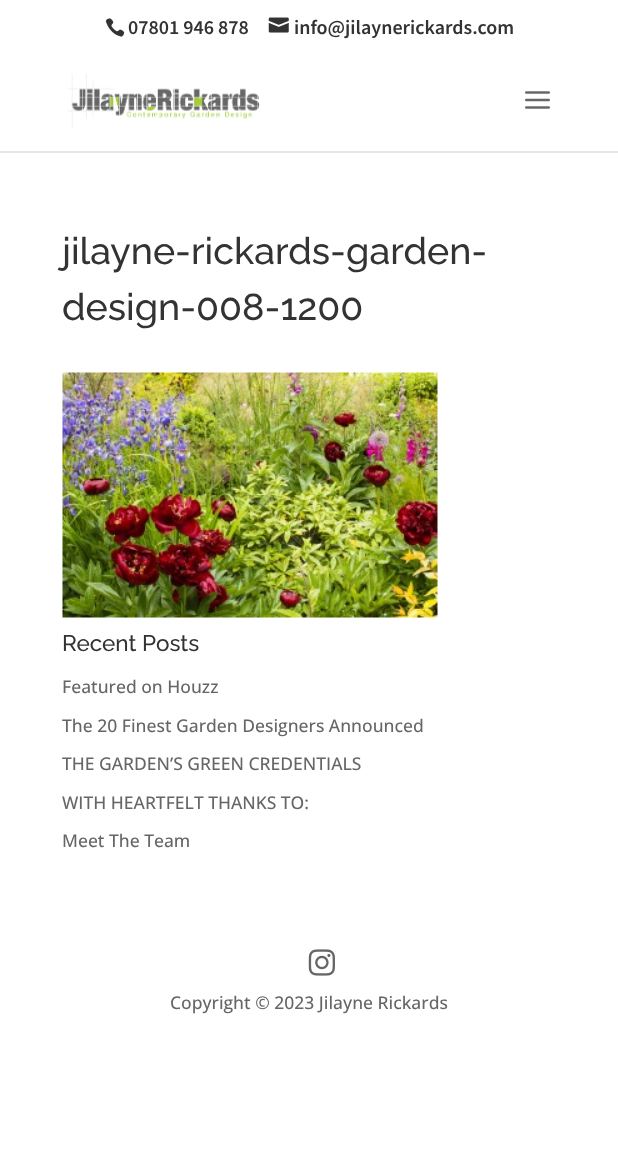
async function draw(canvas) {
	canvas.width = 618;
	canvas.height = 1172;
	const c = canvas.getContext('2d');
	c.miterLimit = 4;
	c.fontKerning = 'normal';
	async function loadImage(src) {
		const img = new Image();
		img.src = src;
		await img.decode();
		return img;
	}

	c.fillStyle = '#fff';
	c.fillRect(0, 0, 618, 1172);
	c.drawImage(await loadImage('img1.png'), 105, 18, 20, 19);
	c.font = '600 20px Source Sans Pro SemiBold';
	c.fillStyle = '#333';
	c.fillText('07801 946 878', 128, 34);
	c.drawImage(await loadImage('img2.png'), 268, 17, 21, 16);
	c.fillText('info@jilaynerickards.com', 294, 34);
	c.fillStyle = '#e6e6e6';
	c.beginPath();
	c.moveTo(0, 151);
	c.lineTo(0, 153);
	c.lineTo(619, 153);
	c.lineTo(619, 53);
	c.lineTo(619, 151);
	c.closePath();
	c.fill();
	c.drawImage(await loadImage('img3.png'), 68, 74, 192, 55);
	c.drawImage(await loadImage('img4.png'), 525, 91, 25, 18);
	c.font = '500 37.5px Raleway';
	c.fillStyle = '#333';
	c.fillText('jilayne-rickards-garden-', 62, 264);
	c.fillText('design-008-1200', 62, 320);
	c.drawImage(await loadImage('img5.png'), 62, 372, 376, 246);
	c.font = '500 22.5px Raleway';
	c.fillText('Recent Posts', 62, 651);
	c.font = '500 17.5px Open Sans';
	c.fillStyle = '#666';
	for (const [text, x, y] of [
		['Featured on Houzz', 62, 693],
		['The 20 Finest Garden Designers Announced', 62, 732],
		['THE GARDEN’S GREEN CREDENTIALS', 62, 770],
		['WITH HEARTFELT THANKS TO:', 62, 809],
		['Meet The Team', 62, 847],
	]) {
		c.fillText(text, x, y);
	}
	c.drawImage(await loadImage('img6.png'), 308, 949, 27, 27);
	c.fillText('Copyright © 2023 Jilayne Rickards', 170, 1009);
}

draw(document.querySelector('canvas'));
